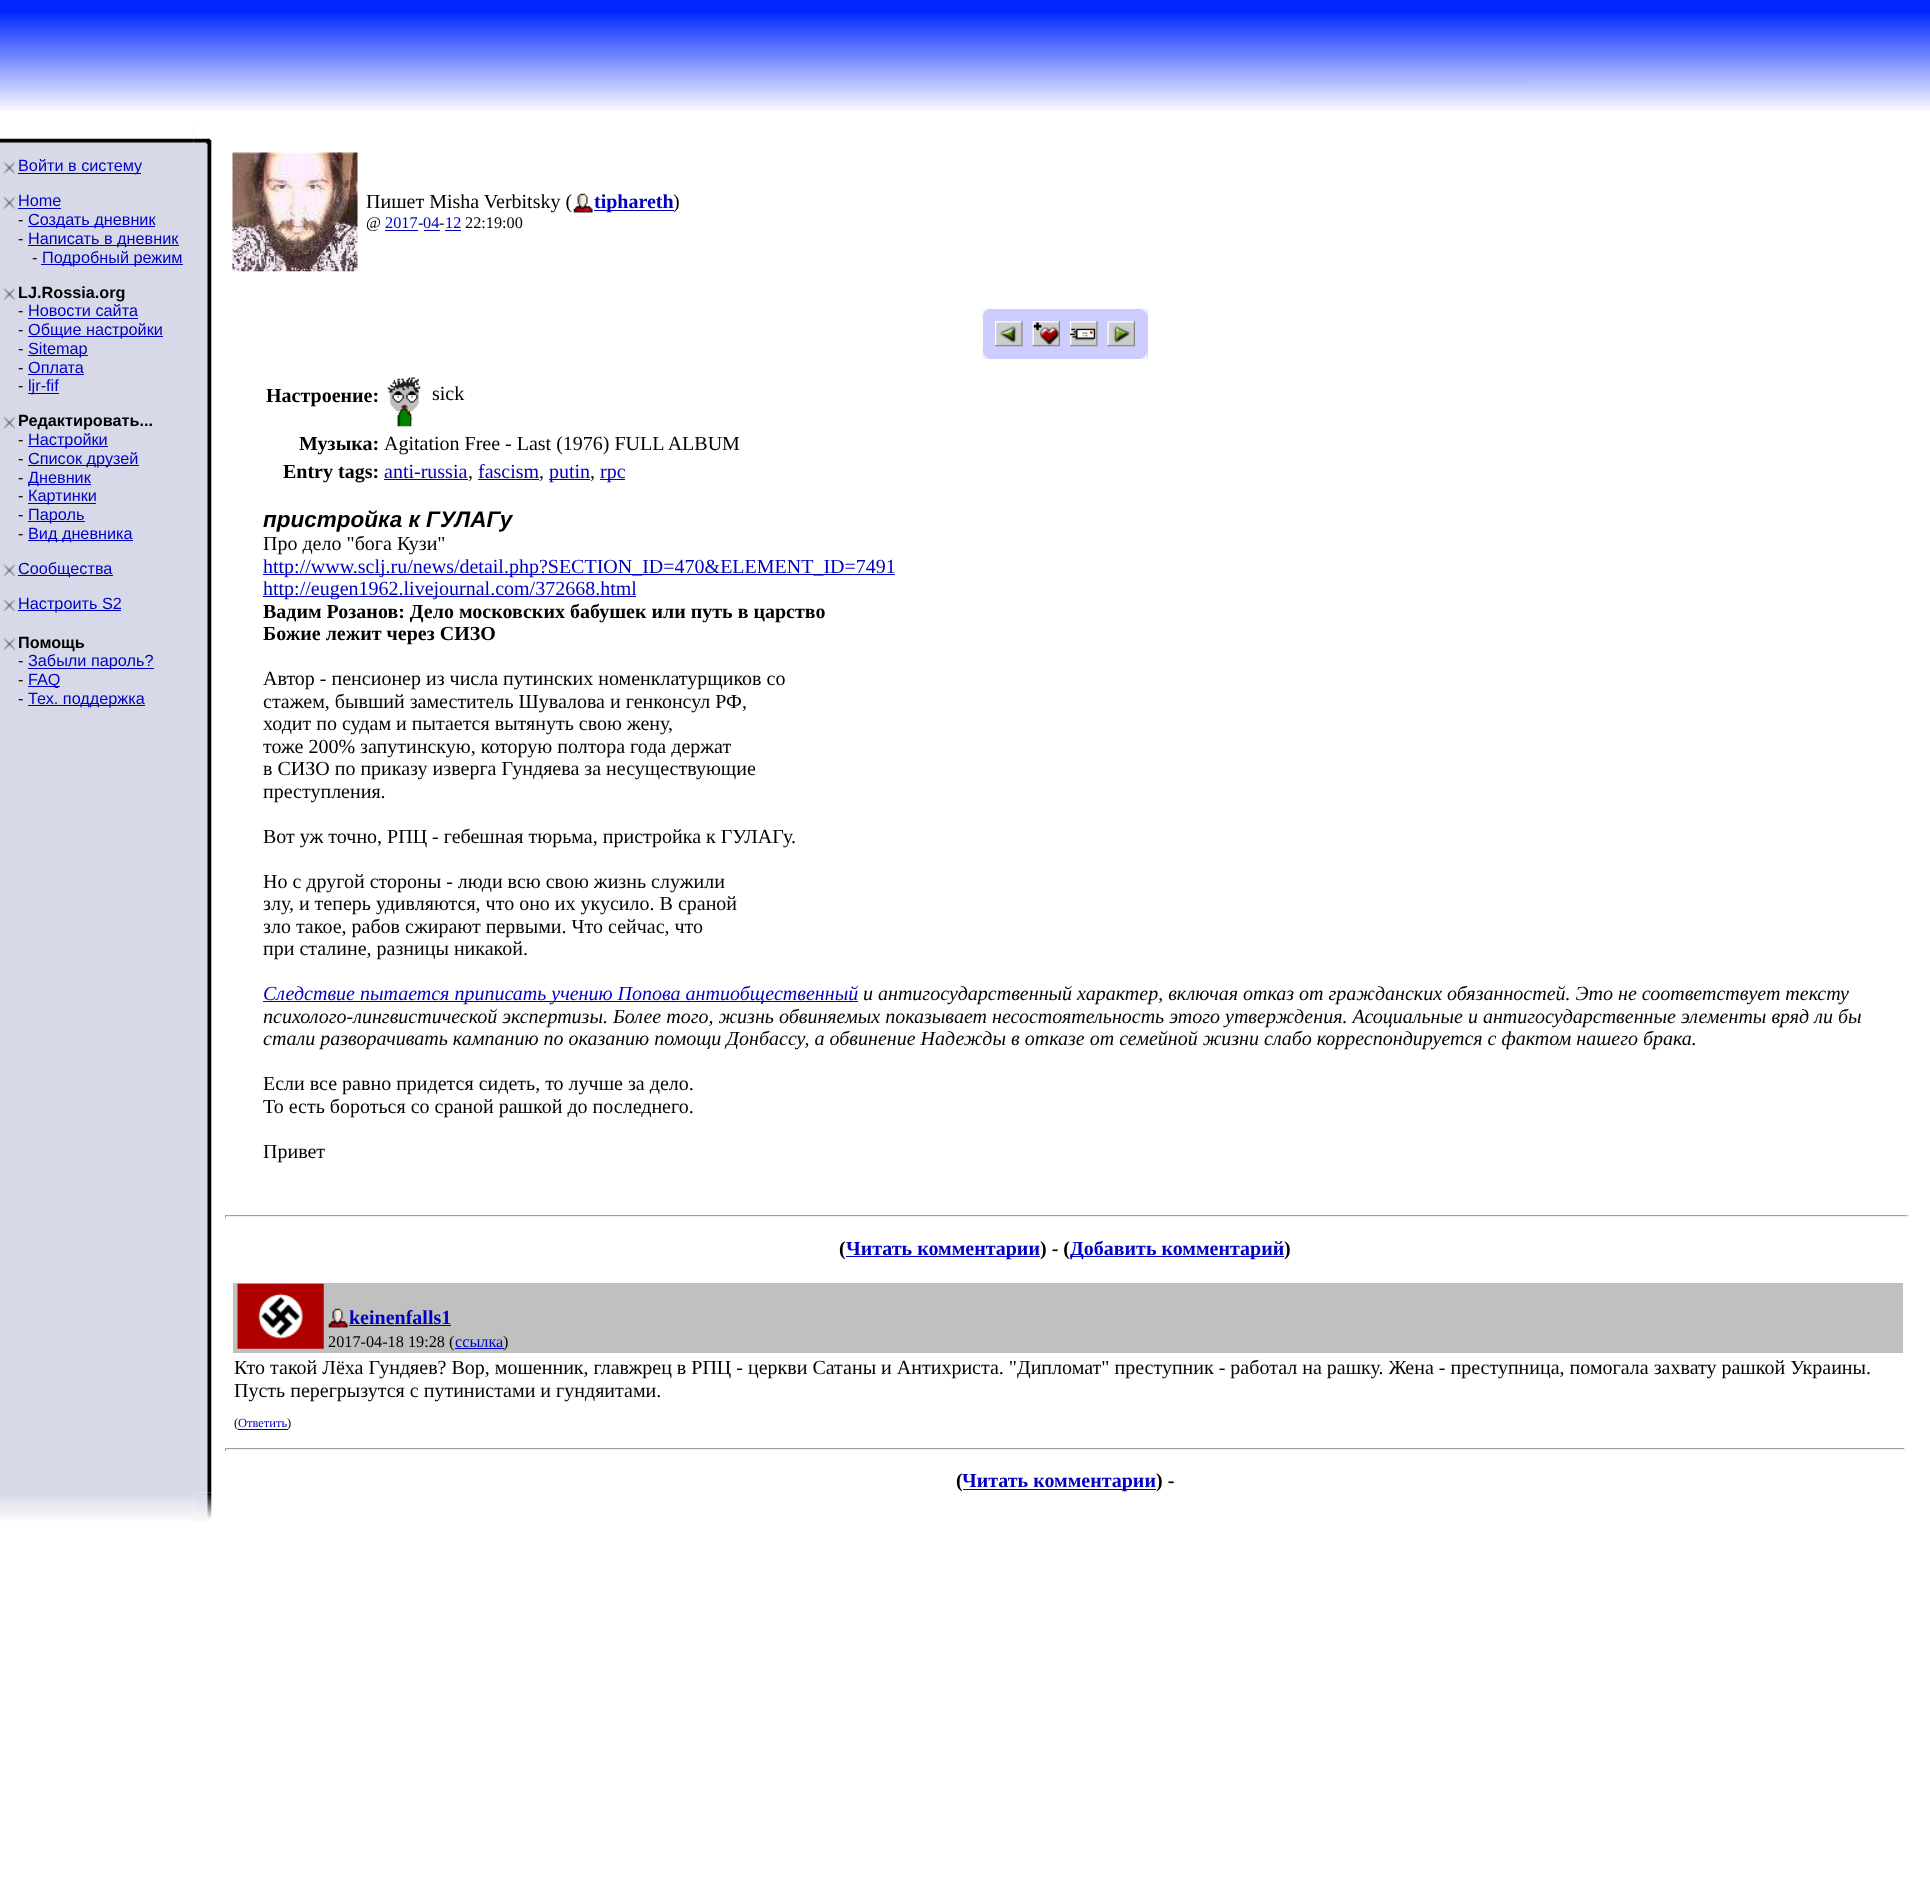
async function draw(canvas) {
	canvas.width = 1930;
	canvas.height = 1889;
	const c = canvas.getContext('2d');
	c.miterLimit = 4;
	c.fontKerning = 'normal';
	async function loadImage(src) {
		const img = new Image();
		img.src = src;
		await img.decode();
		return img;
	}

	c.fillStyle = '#fff';
	c.fillRect(0, 0, 1930, 1889);
	c.drawImage(await loadImage('img1.png'), 0, 0, 1930, 111);
	c.fillStyle = '#d7d9e8';
	c.fillRect(0, 125, 194, 1368);
	c.drawImage(await loadImage('img2.png'), 0, 125, 194, 18);
	c.drawImage(await loadImage('img3.png'), 3, 161, 12, 13);
	c.fillStyle = '#0000c0';
	c.fillRect(18, 173, 123, 1);
	c.font = '16.25px Liberation Sans';
	c.fillText('Войти в систему', 18, 171);
	c.drawImage(await loadImage('img3.png'), 3, 196, 12, 13);
	c.fillText('Home', 18, 206);
	c.fillRect(18, 208, 43, 1);
	c.fillStyle = '#000';
	c.fillText('-', 18, 225);
	c.fillStyle = '#0000c0';
	c.fillRect(28, 226, 127, 1);
	c.fillText('Создать дневник', 28, 225);
	c.fillStyle = '#000';
	c.fillText('-', 18, 244);
	c.fillStyle = '#0000c0';
	c.fillRect(28, 245, 151, 1);
	c.fillText('Написать в дневник', 28, 244);
	c.fillStyle = '#000';
	c.fillText('-', 32, 263);
	c.fillStyle = '#0000c0';
	c.fillRect(41, 264, 142, 1);
	c.fillText('Подробный режим', 42, 263);
	c.drawImage(await loadImage('img4.png'), 3, 287, 12, 13);
	c.font = 'bold 16.25px Liberation Sans';
	c.fillStyle = '#000';
	c.fillText('LJ.Rossia.org', 18, 298);
	c.font = '16.25px Liberation Sans';
	c.fillText('-', 18, 316);
	c.fillStyle = '#0000c0';
	c.fillText('Новости сайта', 28, 316);
	c.fillRect(28, 318, 110, 1);
	c.fillStyle = '#000';
	c.fillText('-', 18, 335);
	c.fillStyle = '#0000c0';
	c.fillRect(28, 336, 135, 1);
	c.fillText('Общие настройки', 28, 335);
	c.fillStyle = '#000';
	c.fillText('-', 18, 354);
	c.fillStyle = '#0000c0';
	c.fillRect(28, 355, 60, 1);
	c.fillText('Sitemap', 28, 354);
	c.fillStyle = '#000';
	c.fillText('-', 18, 373);
	c.fillStyle = '#0000c0';
	c.fillText('Оплата', 28, 373);
	c.fillRect(28, 374, 56, 1);
	c.fillStyle = '#000';
	c.fillText('-', 18, 391);
	c.fillStyle = '#0000c0';
	c.fillRect(28, 393, 31, 1);
	c.fillText('ljr-fif', 28, 391);
	c.drawImage(await loadImage('img3.png'), 3, 416, 12, 13);
	c.font = 'bold 16.25px Liberation Sans';
	c.fillStyle = '#000';
	c.fillText('Редактировать...', 18, 426);
	c.font = '16.25px Liberation Sans';
	c.fillText('-', 18, 445);
	c.fillStyle = '#0000c0';
	c.fillRect(28, 446, 80, 1);
	c.fillText('Настройки', 28, 445);
	c.fillStyle = '#000';
	c.fillText('-', 18, 464);
	c.fillStyle = '#0000c0';
	c.fillRect(28, 465, 111, 1);
	c.fillText('Список друзей', 28, 464);
	c.fillStyle = '#000';
	c.fillText('-', 18, 483);
	c.fillStyle = '#0000c0';
	c.fillRect(28, 484, 63, 1);
	c.fillText('Дневник', 28, 483);
	c.fillStyle = '#000';
	c.fillText('-', 18, 501);
	c.fillStyle = '#0000c0';
	c.fillRect(28, 503, 68, 1);
	c.fillText('Картинки', 28, 501);
	c.fillStyle = '#000';
	c.fillText('-', 18, 520);
	c.fillStyle = '#0000c0';
	c.fillRect(28, 521, 57, 1);
	c.fillText('Пароль', 28, 520);
	c.fillStyle = '#000';
	c.fillText('-', 18, 539);
	c.fillStyle = '#0000c0';
	c.fillRect(28, 540, 105, 1);
	c.fillText('Вид дневника', 28, 539);
	c.drawImage(await loadImage('img5.png'), 3, 563, 12, 14);
	c.fillRect(18, 575, 95, 1);
	c.fillText('Сообщества', 18, 574);
	c.drawImage(await loadImage('img5.png'), 3, 598, 12, 14);
	c.fillRect(18, 610, 103, 1);
	c.fillText('Настроить S2', 18, 609);
	c.drawImage(await loadImage('img6.png'), 3, 637, 12, 13);
	c.font = 'bold 16.25px Liberation Sans';
	c.fillStyle = '#000';
	c.fillText('Помощь', 18, 648);
	c.font = '16.25px Liberation Sans';
	c.fillText('-', 18, 666);
	c.fillStyle = '#0000c0';
	c.fillRect(28, 668, 126, 1);
	c.fillText('Забыли пароль?', 28, 666);
	c.fillStyle = '#000';
	c.fillText('-', 18, 685);
	c.fillStyle = '#0000c0';
	c.fillRect(28, 686, 32, 1);
	c.fillText('FAQ', 28, 685);
	c.fillStyle = '#000';
	c.fillText('-', 18, 704);
	c.fillStyle = '#0000c0';
	c.fillRect(28, 705, 117, 1);
	c.fillText('Тех. поддержка', 28, 704);
	c.drawImage(await loadImage('img7.png'), 194, 153, 18, 1340);
	c.drawImage(await loadImage('img8.png'), 193, 125, 19, 28);
	c.drawImage(await loadImage('img9.png'), 232, 152, 126, 120);
	c.font = '20px Liberation Serif';
	c.fillStyle = '#000';
	c.fillText('Пишет Misha Verbitsky (', 366, 208);
	c.drawImage(await loadImage('img10.png'), 573, 193, 20, 20);
	c.fillStyle = '#0000c0';
	c.fillRect(594, 210, 80, 1);
	c.font = 'bold 20px Liberation Serif';
	c.fillText('tiphareth', 594, 208);
	c.font = '20px Liberation Serif';
	c.fillStyle = '#000';
	c.fillText(')', 673, 208);
	c.font = '16.25px Liberation Serif';
	c.fillText('@', 366, 228);
	c.fillStyle = '#0000c0';
	c.fillText('2017', 385, 228);
	c.fillStyle = '#000';
	c.fillText('-', 418, 228);
	c.fillStyle = '#0000c0';
	c.fillRect(385, 230, 33, 1);
	c.fillText('04', 423, 228);
	c.fillStyle = '#000';
	c.fillText('-', 439, 228);
	c.fillStyle = '#0000c0';
	c.fillRect(424, 230, 16, 1);
	c.fillRect(445, 230, 16, 1);
	c.fillText('12', 445, 228);
	c.fillStyle = '#000';
	c.fillText('22:19:00', 465, 228);
	c.fillStyle = '#ccf';
	c.fillRect(983, 309, 165, 50);
	c.drawImage(await loadImage('img11.png'), 982, 308, 9, 10);
	c.drawImage(await loadImage('img12.png'), 1139, 308, 9, 7);
	c.drawImage(await loadImage('img13.png'), 995, 321, 28, 26);
	c.drawImage(await loadImage('img14.png'), 1032, 321, 28, 26);
	c.drawImage(await loadImage('img15.png'), 1070, 321, 28, 26);
	c.drawImage(await loadImage('img16.png'), 1107, 321, 28, 26);
	c.drawImage(await loadImage('img17.png'), 982, 350, 7, 9);
	c.drawImage(await loadImage('img18.png'), 1141, 352, 7, 7);
	c.font = 'bold 20px Liberation Serif';
	c.fillStyle = '#000';
	c.fillText('Настроение:', 266, 402);
	c.drawImage(await loadImage('img19.png'), 387, 377, 34, 50);
	c.font = '20px Liberation Serif';
	c.fillText('sick', 432, 400);
	c.font = 'bold 20px Liberation Serif';
	c.fillText('Музыка:', 299, 450);
	c.font = '20px Liberation Serif';
	c.fillText('Agitation Free - Last (1976) FULL ALBUM', 384, 450);
	c.font = 'bold 20px Liberation Serif';
	c.fillText('Entry tags:', 283, 478);
	c.font = '20px Liberation Serif';
	c.fillStyle = '#0000c0';
	c.fillText('anti-russia', 384, 478);
	c.fillRect(384, 479, 84, 1);
	c.fillStyle = '#000';
	c.fillText(',', 468, 478);
	c.fillStyle = '#0000c0';
	c.fillText('fascism', 478, 478);
	c.fillRect(478, 479, 61, 1);
	c.fillStyle = '#000';
	c.fillText(',', 539, 478);
	c.fillStyle = '#0000c0';
	c.fillRect(549, 479, 41, 1);
	c.fillText('putin', 549, 478);
	c.fillStyle = '#000';
	c.fillText(',', 590, 478);
	c.fillStyle = '#0000c0';
	c.fillRect(600, 479, 25, 1);
	c.fillText('rpc', 600, 478);
	c.font = 'italic bold 22.5px Liberation Sans';
	c.fillStyle = '#000';
	c.fillText('пристройка к ГУЛАГу', 263, 527);
	c.font = '20px Liberation Serif';
	c.fillText('Про дело "бога Кузи"', 263, 550);
	c.fillStyle = '#0000c0';
	c.fillRect(263, 574, 632, 1);
	c.fillText('http://www.sclj.ru/news/detail.php?SECTION_ID=470&ELEMENT_ID=7491', 263, 573);
	c.fillRect(263, 596, 373, 1);
	c.fillText('http://eugen1962.livejournal.com/372668.html', 263, 595);
	c.font = 'bold 20px Liberation Serif';
	c.fillStyle = '#000';
	c.fillText('Вадим Розанов: Дело московских бабушек или путь в царство', 263, 618);
	c.fillText('Божие лежит через СИЗО', 263, 640);
	c.font = '20px Liberation Serif';
	for (const [text, x, y] of [
		['Автор - пенсионер из числа путинских номенклатурщиков со', 263, 685],
		['стажем, бывший заместитель Шувалова и генконсул РФ,', 263, 708],
		['ходит по судам и пытается вытянуть свою жену,', 263, 730],
		['тоже 200% запутинскую, которую полтора года держат', 263, 753],
		['в СИЗО по приказу изверга Гундяева за несуществующие', 263, 775],
		['преступления.', 263, 798],
		['Вот уж точно, РПЦ - гебешная тюрьма, пристройка к ГУЛАГу.', 263, 843],
		['Но с другой стороны - люди всю свою жизнь служили', 263, 888],
		['злу, и теперь удивляются, что оно их укусило. В сраной', 263, 910],
		['зло такое, рабов сжирают первыми. Что сейчас, что', 263, 933],
		['при сталине, разницы никакой.', 263, 955],
	]) {
		c.fillText(text, x, y);
	}
	c.fillStyle = '#0000c0';
	c.fillRect(263, 1001, 595, 1);
	c.font = 'italic 20px Liberation Serif';
	c.fillText('Следствие пытается приписать учению Попова антиобщественный', 263, 1000);
	c.fillStyle = '#000';
	for (const [text, x, y] of [
		['и антигосударственный характер, включая отказ от гражданских обязанностей. Это не соответствует тексту', 863, 1000],
		['психолого-лингвистической экспертизы. Более того, жизнь обвиняемых показывает несостоятельность этого утверждения. Асоциальные и антигосударственные элементы вряд ли бы', 263, 1023],
		['стали разворачивать кампанию по оказанию помощи Донбассу, а обвинение Надежды в отказе от семейной жизни слабо корреспондируется с фактом нашего брака.', 263, 1045],
	]) {
		c.fillText(text, x, y);
	}
	c.font = '20px Liberation Serif';
	for (const [text, x, y] of [
		['Если все равно придется сидеть, то лучше за дело.', 263, 1090],
		['То есть бороться со сраной рашкой до последнего.', 263, 1113],
		['Привет', 263, 1158],
	]) {
		c.fillText(text, x, y);
	}
	for (const [x, y, w, h, color] of [
		[225, 1215, 1683, 1, '#9f9f9f'],
		[1906, 1215, 1, 3, '#eee'],
		[225, 1216, 1683, 1, '#eee'],
		[225, 1215, 1, 3, '#9f9f9f'],
	]) {
		c.fillStyle = color;
		c.fillRect(x, y, w, h);
	}
	c.font = 'bold 20px Liberation Serif';
	c.fillStyle = '#000';
	c.fillText('(', 839, 1255);
	c.fillStyle = '#0000c0';
	c.fillRect(846, 1256, 194, 1);
	c.fillText('Читать комментарии', 846, 1255);
	c.fillStyle = '#000';
	c.fillText(') - (', 1040, 1255);
	c.fillStyle = '#0000c0';
	c.fillRect(1070, 1256, 214, 1);
	c.fillText('Добавить комментарий', 1070, 1255);
	c.fillStyle = '#000';
	c.fillText(')', 1284, 1255);
	c.fillStyle = '#c0c0c0';
	c.fillRect(233, 1283, 1670, 70);
	c.drawImage(await loadImage('img20.png'), 237, 1283, 87, 66);
	c.drawImage(await loadImage('img21.png'), 328, 1308, 20, 20);
	c.fillStyle = '#0000c0';
	c.fillText('keinenfalls1', 349, 1324);
	c.fillRect(349, 1325, 102, 1);
	c.font = '16.25px Liberation Serif';
	c.fillStyle = '#000';
	c.fillText('2017-04-18 19:28', 328, 1347);
	c.fillText('(', 449, 1347);
	c.fillStyle = '#0000c0';
	c.fillText('ссылка', 455, 1347);
	c.fillRect(455, 1348, 49, 1);
	c.fillStyle = '#000';
	c.fillText(')', 503, 1347);
	c.font = '20px Liberation Serif';
	c.fillText('Кто такой Лёха Гундяев? Вор, мошенник, главжрец в РПЦ - церкви Сатаны и Антихриста. "Дипломат" преступник - работал на рашку. Жена - преступница, помогала захвату рашкой Украины.', 234, 1374);
	c.fillText('Пусть перегрызутся с путинистами и гундяитами.', 234, 1397);
	c.font = '12.5px Liberation Serif';
	c.fillText('(', 234, 1427);
	c.fillStyle = '#0000c0';
	c.fillRect(238, 1429, 50, 1);
	c.fillText('Ответить', 238, 1427);
	c.fillStyle = '#000';
	c.fillText(')', 287, 1427);
	for (const [x, y, w, h, color] of [
		[225, 1448, 1680, 1, '#9f9f9f'],
		[1904, 1448, 1, 3, '#eee'],
		[225, 1449, 1680, 1, '#eee'],
		[225, 1448, 1, 3, '#9f9f9f'],
	]) {
		c.fillStyle = color;
		c.fillRect(x, y, w, h);
	}
	c.font = 'bold 20px Liberation Serif';
	c.fillStyle = '#000';
	c.fillText('(', 956, 1487);
	c.fillStyle = '#0000c0';
	c.fillRect(963, 1489, 193, 1);
	c.fillText('Читать комментарии', 962, 1487);
	c.fillStyle = '#000';
	c.fillText(') -', 1156, 1487);
	c.drawImage(await loadImage('img22.png'), 0, 1493, 194, 28);
	c.drawImage(await loadImage('img23.png'), 194, 1492, 18, 30);
}

draw(document.querySelector('canvas'));
